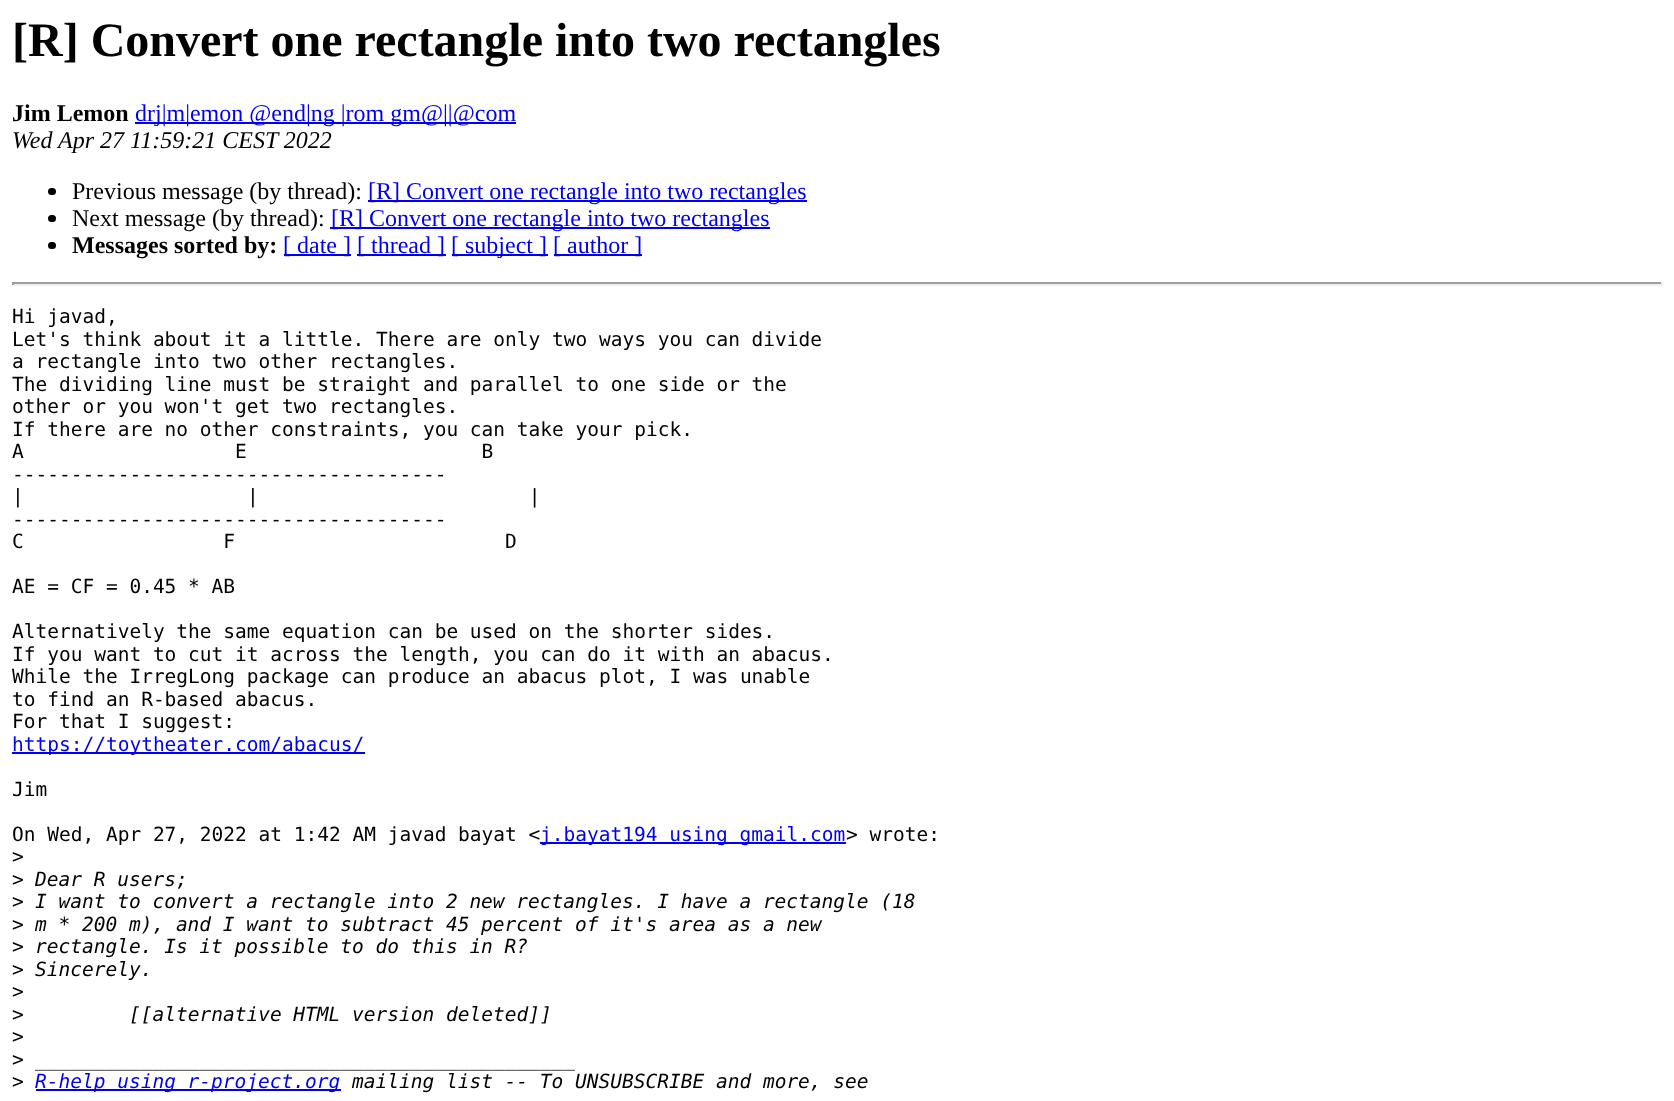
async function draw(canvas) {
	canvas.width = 1674;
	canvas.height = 1101;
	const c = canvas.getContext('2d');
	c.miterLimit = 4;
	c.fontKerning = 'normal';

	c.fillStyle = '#fff';
	c.fillRect(0, 0, 1674, 1101);
	c.font = 'bold 48px Liberation Serif';
	c.fillStyle = '#000';
	c.fillText('[R] Convert one rectangle into two rectangles', 12, 56);
	c.font = 'bold 24px Liberation Serif';
	c.fillText('Jim Lemon', 12, 121);
	c.fillStyle = '#00e';
	c.fillRect(135, 122, 381, 2);
	c.font = '24px Liberation Serif';
	c.fillText('drj|m|emon @end|ng |rom gm@||@com', 135, 121);
	c.font = 'italic 24px Liberation Serif';
	c.fillStyle = '#000';
	c.fillText('Wed Apr 27 11:59:21 CEST 2022', 12, 148);
	c.beginPath();
	c.roundRect(48, 188, 8, 7, 3.5);
	c.fill();
	c.font = '24px Liberation Serif';
	c.fillText('Previous message (by thread):', 72, 199);
	c.fillStyle = '#00e';
	c.fillRect(368, 200, 439, 2);
	c.fillText('[R] Convert one rectangle into two rectangles', 368, 199);
	c.fillStyle = '#000';
	c.beginPath();
	c.roundRect(48, 215, 8, 7, 3.5);
	c.fill();
	c.fillText('Next message (by thread):', 72, 226);
	c.fillStyle = '#00e';
	c.fillRect(330, 227, 440, 2);
	c.fillText('[R] Convert one rectangle into two rectangles', 331, 226);
	c.fillStyle = '#000';
	c.beginPath();
	c.roundRect(48, 242, 8, 7, 3.5);
	c.fill();
	c.font = 'bold 24px Liberation Serif';
	c.fillText('Messages sorted by:', 72, 253);
	c.fillStyle = '#00e';
	c.fillRect(284, 254, 67, 2);
	c.font = '24px Liberation Serif';
	c.fillText('[ date ]', 283, 253);
	c.fillRect(357, 254, 89, 2);
	c.fillText('[ thread ]', 357, 253);
	c.fillRect(452, 254, 96, 2);
	c.fillText('[ subject ]', 451, 253);
	c.fillRect(554, 254, 88, 2);
	c.fillText('[ author ]', 553, 253);
	for (const [x, y, w, h, color] of [
		[12, 282, 1650, 2, '#9f9f9f'],
		[1661, 282, 2, 3, '#eee'],
		[12, 284, 1650, 2, '#eee'],
		[12, 282, 2, 3, '#9f9f9f'],
	]) {
		c.fillStyle = color;
		c.fillRect(x, y, w, h);
	}
	c.font = '19.5px DejaVu Sans Mono';
	c.fillStyle = '#000';
	for (const [text, x, y] of [
		['Hi javad,', 12, 323],
		['Let\'s think about it a little. There are only two ways you can divide', 12, 346],
		['a rectangle into two other rectangles.', 12, 368],
		['The dividing line must be straight and parallel to one side or the', 12, 391],
		['other or you won\'t get two rectangles.', 12, 413],
		['If there are no other constraints, you can take your pick.', 12, 436],
		['A                  E                    B', 12, 458],
		['-------------------------------------', 12, 481],
		['|', 12, 503],
	]) {
		c.fillText(text, x, y);
	}
	c.font = 'italic 19.5px DejaVu Sans Mono';
	c.fillText('|                       |', 247, 503);
	c.font = '19.5px DejaVu Sans Mono';
	for (const [text, x, y] of [
		['-------------------------------------', 12, 526],
		['C                 F                       D', 12, 548],
		['AE = CF = 0.45 * AB', 12, 593],
		['Alternatively the same equation can be used on the shorter sides.', 12, 638],
		['If you want to cut it across the length, you can do it with an abacus.', 12, 661],
		['While the IrregLong package can produce an abacus plot, I was unable', 12, 683],
		['to find an R-based abacus.', 12, 706],
		['For that I suggest:', 12, 728],
	]) {
		c.fillText(text, x, y);
	}
	c.fillStyle = '#00e';
	c.fillRect(12, 752, 353, 2);
	c.fillText('https://toytheater.com/abacus/', 12, 751);
	c.fillStyle = '#000';
	c.fillText('Jim', 12, 796);
	c.fillText('On Wed, Apr 27, 2022 at 1:42 AM javad bayat <', 12, 841);
	c.fillStyle = '#00e';
	c.fillRect(540, 842, 306, 2);
	c.fillText('j.bayat194 using gmail.com', 540, 841);
	c.fillStyle = '#000';
	for (const [text, x, y] of [
		['> wrote:', 846, 841],
		['>', 12, 863],
		['>', 12, 886],
	]) {
		c.fillText(text, x, y);
	}
	c.font = 'italic 19.5px DejaVu Sans Mono';
	c.fillText('Dear R users;', 35, 886);
	c.font = '19.5px DejaVu Sans Mono';
	c.fillText('>', 12, 908);
	c.font = 'italic 19.5px DejaVu Sans Mono';
	c.fillText('I want to convert a rectangle into 2 new rectangles. I have a rectangle (18', 35, 908);
	c.font = '19.5px DejaVu Sans Mono';
	c.fillText('>', 12, 931);
	c.font = 'italic 19.5px DejaVu Sans Mono';
	c.fillText('m * 200 m), and I want to subtract 45 percent of it\'s area as a new', 35, 931);
	c.font = '19.5px DejaVu Sans Mono';
	c.fillText('>', 12, 953);
	c.font = 'italic 19.5px DejaVu Sans Mono';
	c.fillText('rectangle. Is it possible to do this in R?', 35, 953);
	c.font = '19.5px DejaVu Sans Mono';
	c.fillText('>', 12, 976);
	c.font = 'italic 19.5px DejaVu Sans Mono';
	c.fillText('Sincerely.', 35, 976);
	c.font = '19.5px DejaVu Sans Mono';
	c.fillText('>', 12, 998);
	c.fillText('>', 12, 1021);
	c.font = 'italic 19.5px DejaVu Sans Mono';
	c.fillText('[[alternative HTML version deleted]]', 129, 1021);
	c.font = '19.5px DejaVu Sans Mono';
	c.fillText('>', 12, 1043);
	c.fillText('>', 12, 1066);
	c.font = 'italic 19.5px DejaVu Sans Mono';
	c.fillText('______________________________________________', 35, 1066);
	c.font = '19.5px DejaVu Sans Mono';
	c.fillText('>', 12, 1088);
	c.fillStyle = '#00e';
	c.fillRect(36, 1089, 305, 2);
	c.font = 'italic 19.5px DejaVu Sans Mono';
	c.fillText('R-help using r-project.org', 35, 1088);
	c.fillStyle = '#000';
	c.fillText('mailing list -- To UNSUBSCRIBE and more, see', 352, 1088);
}

draw(document.querySelector('canvas'));
